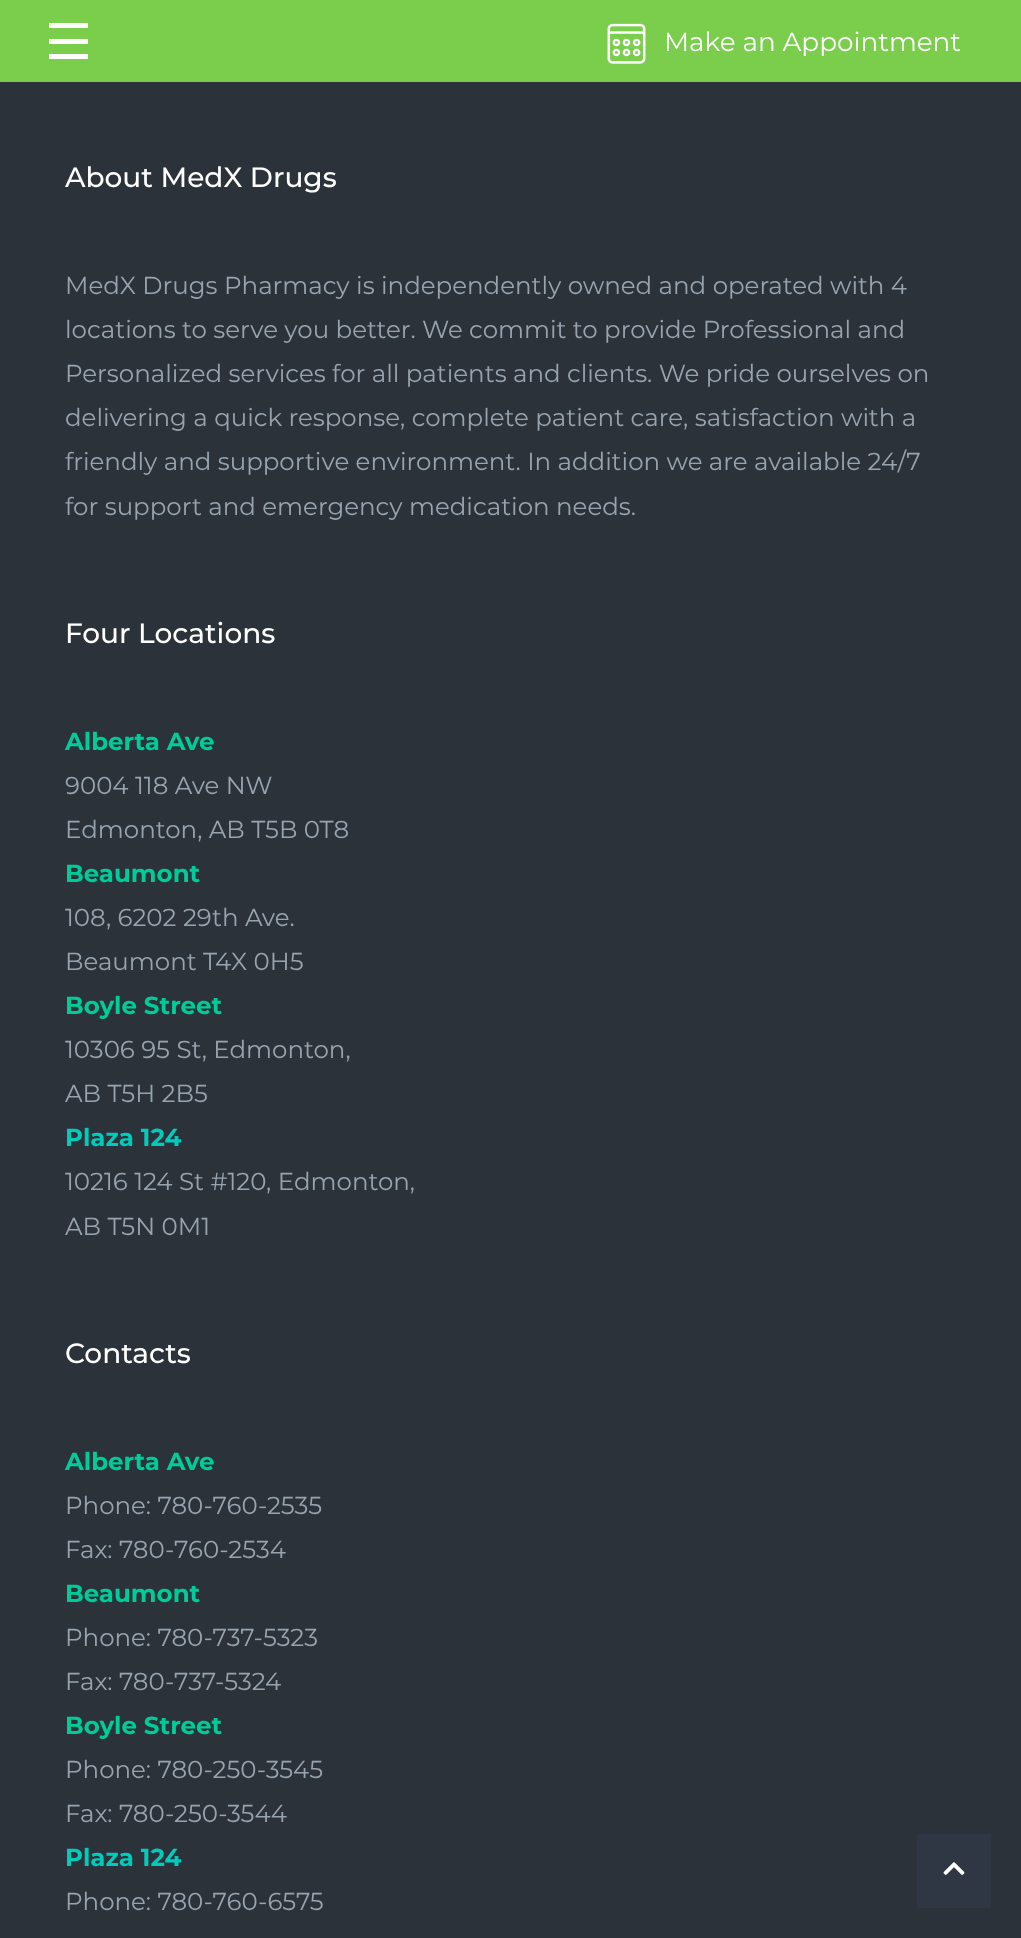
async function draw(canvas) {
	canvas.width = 1021;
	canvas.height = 1938;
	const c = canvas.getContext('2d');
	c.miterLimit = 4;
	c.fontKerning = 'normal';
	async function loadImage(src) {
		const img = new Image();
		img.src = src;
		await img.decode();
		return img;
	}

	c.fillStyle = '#2b3239';
	c.fillRect(0, 0, 1021, 1938);
	for (const [x, y, w, h, color] of [
		[0, 0, 1021, 82, '#7ace4c'],
		[49, 23, 39, 5, '#fff'],
		[49, 39, 39, 5, '#fff'],
		[49, 54, 39, 5, '#fff'],
	]) {
		c.fillStyle = color;
		c.fillRect(x, y, w, h);
	}
	c.drawImage(await loadImage('img1.png'), 607, 23, 39, 41);
	c.font = '26.25px Montserrat';
	c.fillText('Make an Appointment', 664, 51);
	c.font = '500 28px Montserrat';
	c.fillText('About MedX Drugs', 65, 187);
	c.font = '24.5px Montserrat';
	c.fillStyle = '#97a4b0';
	for (const [text, x, y] of [
		['MedX Drugs Pharmacy is independently owned and operated with 4', 65, 294],
		['locations to serve you better. We commit to provide Professional and', 65, 338],
		['Personalized services for all patients and clients. We pride ourselves on', 65, 382],
		['delivering a quick response, complete patient care, satisfaction with a', 65, 426],
		['friendly and supportive environment. In addition we are available 24/7', 65, 470],
		['for support and emergency medication needs.', 65, 515],
	]) {
		c.fillText(text, x, y);
	}
	c.font = '500 28px Montserrat';
	c.fillStyle = '#fff';
	c.fillText('Four Locations', 65, 643);
	c.font = 'bold 24.5px Montserrat';
	c.fillStyle = '#0c9';
	c.fillText('Alberta Ave', 65, 750);
	c.font = '24.5px Montserrat';
	c.fillStyle = '#97a4b0';
	c.fillText('9004 118 Ave NW', 65, 794);
	c.fillText('Edmonton, AB T5B 0T8', 65, 838);
	c.font = 'bold 24.5px Montserrat';
	c.fillStyle = '#0c9';
	c.fillText('Beaumont', 65, 882);
	c.font = '24.5px Montserrat';
	c.fillStyle = '#97a4b0';
	c.fillText('108, 6202 29th Ave.', 65, 926);
	c.fillText('Beaumont T4X 0H5', 65, 970);
	c.font = 'bold 24.5px Montserrat';
	c.fillStyle = '#0c9';
	c.fillText('Boyle Street', 65, 1014);
	c.font = '24.5px Montserrat';
	c.fillStyle = '#97a4b0';
	c.fillText('10306 95 St, Edmonton,', 65, 1058);
	c.fillText('AB T5H 2B5', 65, 1102);
	c.font = 'bold 24.5px Montserrat';
	c.fillStyle = '#0cb';
	c.fillText('Plaza 124', 65, 1146);
	c.font = '24.5px Montserrat';
	c.fillStyle = '#97a4b0';
	c.fillText('10216 124 St #120, Edmonton,', 65, 1190);
	c.fillText('AB T5N 0M1', 65, 1235);
	c.font = '500 28px Montserrat';
	c.fillStyle = '#fff';
	c.fillText('Contacts', 65, 1363);
	c.font = 'bold 24.5px Montserrat';
	c.fillStyle = '#0c9';
	c.fillText('Alberta Ave', 65, 1470);
	c.font = '24.5px Montserrat';
	c.fillStyle = '#97a4b0';
	c.fillText('Phone: 780-760-2535', 65, 1514);
	c.fillText('Fax: 780-760-2534', 65, 1558);
	c.font = 'bold 24.5px Montserrat';
	c.fillStyle = '#0c9';
	c.fillText('Beaumont', 65, 1602);
	c.font = '24.5px Montserrat';
	c.fillStyle = '#97a4b0';
	c.fillText('Phone: 780-737-5323', 65, 1646);
	c.fillText('Fax: 780-737-5324', 65, 1690);
	c.font = 'bold 24.5px Montserrat';
	c.fillStyle = '#0c9';
	c.fillText('Boyle Street', 65, 1734);
	c.font = '24.5px Montserrat';
	c.fillStyle = '#97a4b0';
	c.fillText('Phone: 780-250-3545', 65, 1778);
	c.fillText('Fax: 780-250-3544', 65, 1822);
	c.font = 'bold 24.5px Montserrat';
	c.fillStyle = '#0cb';
	c.fillText('Plaza 124', 65, 1866);
	c.font = '24.5px Montserrat';
	c.fillStyle = '#97a4b0';
	c.fillText('Phone: 780-760-6575', 65, 1910);
	c.fillStyle = '#2f3644';
	c.fillRect(917, 1834, 74, 74);
	c.drawImage(await loadImage('img2.png'), 943, 1862, 22, 13);
}

draw(document.querySelector('canvas'));
